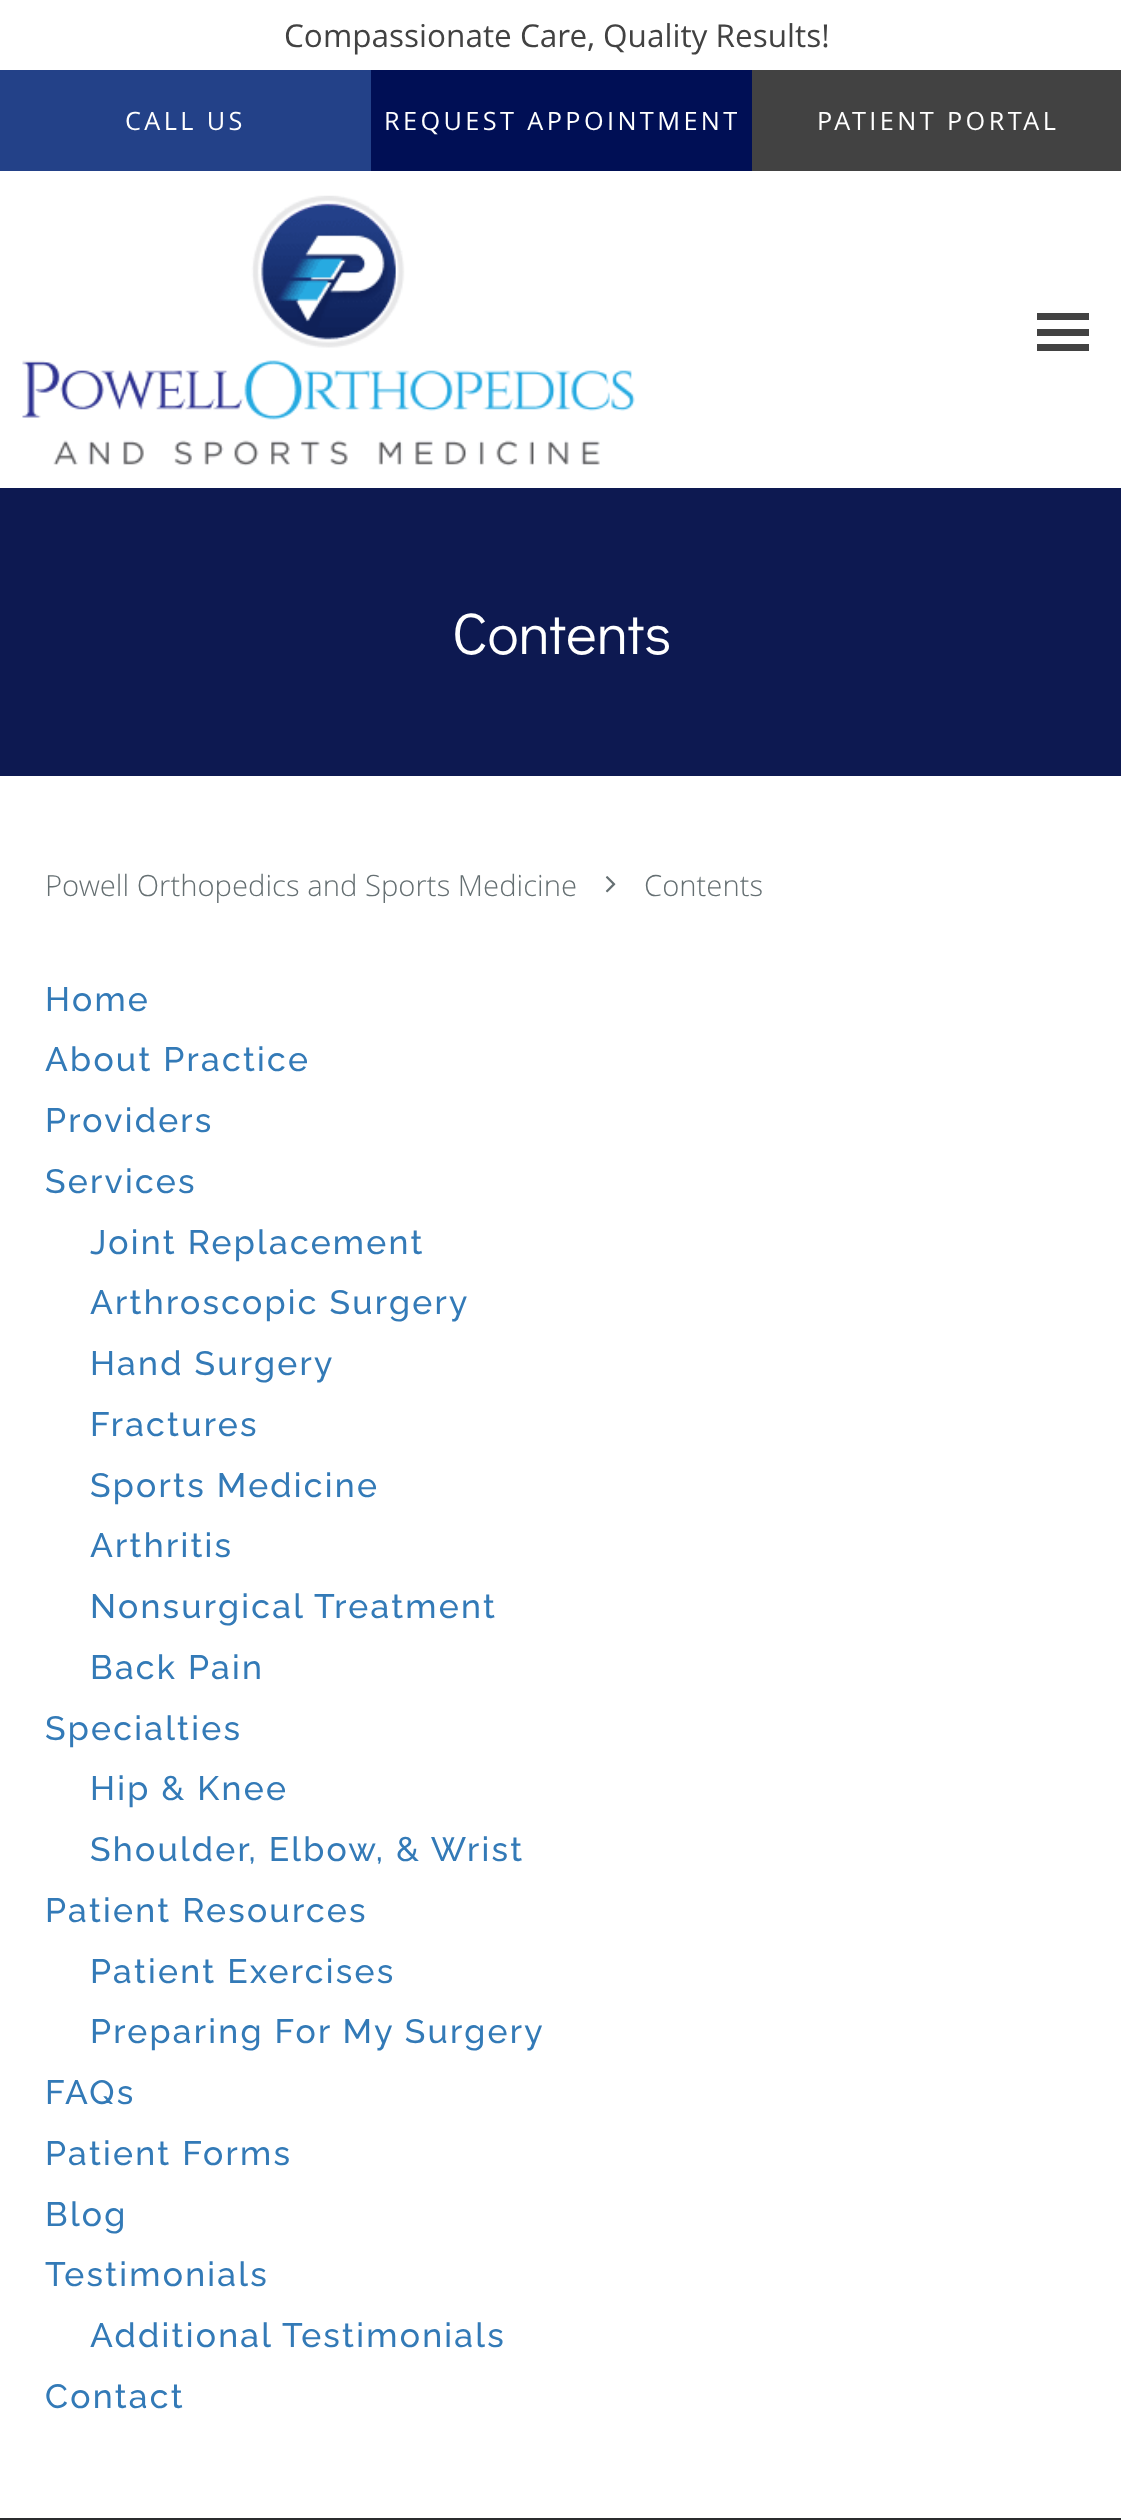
async function draw(canvas) {
	canvas.width = 1121;
	canvas.height = 2520;
	const c = canvas.getContext('2d');
	c.miterLimit = 4;
	c.fontKerning = 'normal';
	async function loadImage(src) {
		const img = new Image();
		img.src = src;
		await img.decode();
		return img;
	}

	c.fillStyle = '#fff';
	c.fillRect(0, 0, 1121, 2520);
	c.font = '31.5px Open Sans';
	c.fillStyle = '#424242';
	c.fillText('Compassionate Care, Quality Results!', 284, 47);
	c.fillStyle = '#234188';
	c.fillRect(0, 70, 371, 101);
	c.letterSpacing = '3.4px';
	c.font = '25.25px Open Sans';
	c.fillStyle = '#fff';
	c.fillText('CALL US', 125, 130);
	c.fillStyle = '#000f55';
	c.fillRect(371, 70, 381, 101);
	c.fillStyle = '#fff';
	c.fillText('REQUEST APPOINTMENT', 384, 130);
	c.fillStyle = '#424242';
	c.fillRect(752, 70, 369, 101);
	c.fillStyle = '#fff';
	c.fillText('PATIENT PORTAL', 817, 130);
	c.drawImage(await loadImage('img1.png'), 22, 195, 613, 271);
	for (const [x, y, w, h, color] of [
		[1037, 313, 52, 7, '#424242'],
		[1037, 329, 52, 7, '#424242'],
		[1037, 344, 52, 7, '#424242'],
		[0, 488, 1121, 288, '#0d1951'],
	]) {
		c.fillStyle = color;
		c.fillRect(x, y, w, h);
	}
	c.letterSpacing = '0px';
	c.font = '58.5px Didact Gothic';
	c.fillStyle = '#fff';
	c.fillText('Contents', 452, 654);
	c.font = '300 29.25px Open Sans';
	c.fillStyle = '#656f72';
	c.fillText('Powell Orthopedics and Sports Medicine', 45, 896);
	c.drawImage(await loadImage('img2.png'), 605, 876, 11, 17);
	c.fillText('Contents', 644, 896);
	c.letterSpacing = '2.25px';
	c.font = '500 33.75px Raleway';
	c.fillStyle = '#337ab7';
	for (const [text, x, y] of [
		['Home', 45, 1011],
		['About Practice', 45, 1071],
		['Providers', 45, 1132],
		['Services', 45, 1193],
		['Joint Replacement', 90, 1254],
		['Arthroscopic Surgery', 90, 1314],
		['Hand Surgery', 90, 1375],
		['Fractures', 90, 1436],
		['Sports Medicine', 90, 1497],
		['Arthritis', 90, 1557],
		['Nonsurgical Treatment', 90, 1618],
		['Back Pain', 90, 1679],
		['Specialties', 45, 1740],
		['Hip & Knee', 90, 1800],
		['Shoulder, Elbow, & Wrist', 90, 1861],
		['Patient Resources', 45, 1922],
		['Patient Exercises', 90, 1983],
		['Preparing For My Surgery', 90, 2043],
		['FAQs', 45, 2104],
		['Patient Forms', 45, 2165],
		['Blog', 45, 2226],
		['Testimonials', 45, 2286],
		['Additional Testimonials', 90, 2347],
		['Contact', 45, 2408],
	]) {
		c.fillText(text, x, y);
	}
	c.fillStyle = '#2b2c2e';
	c.fillRect(0, 2518, 1121, 2);
}

draw(document.querySelector('canvas'));
